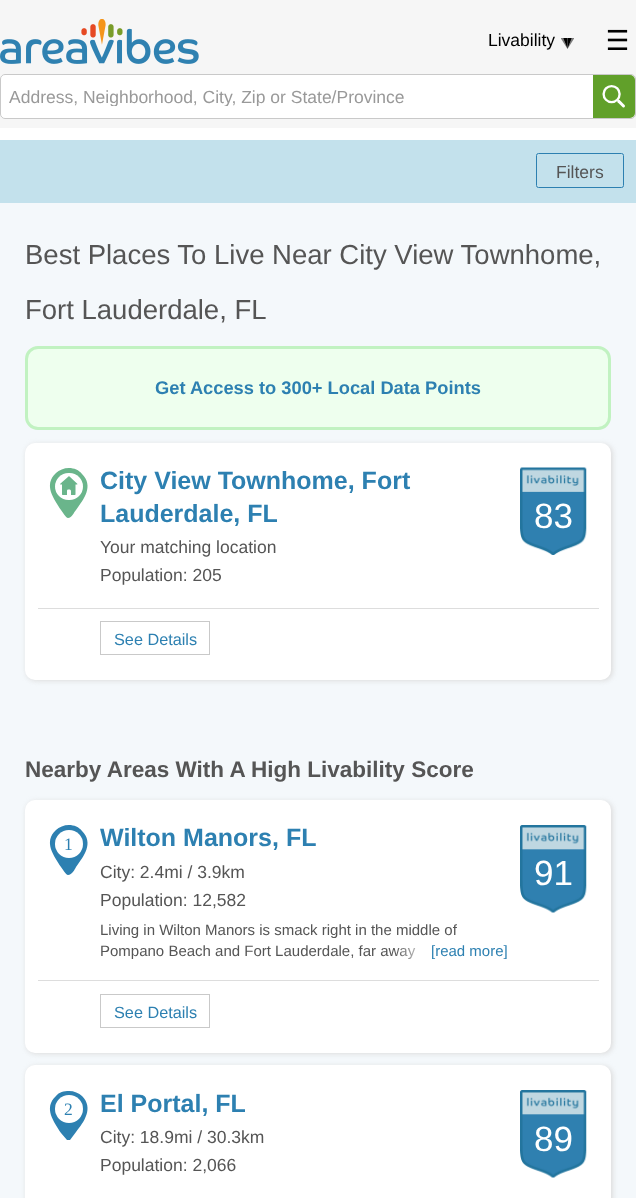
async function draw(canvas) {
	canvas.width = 636;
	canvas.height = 1200;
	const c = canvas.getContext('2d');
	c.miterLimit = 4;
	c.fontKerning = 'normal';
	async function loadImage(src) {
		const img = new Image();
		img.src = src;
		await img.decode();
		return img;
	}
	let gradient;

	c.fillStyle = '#fff';
	c.fillRect(0, 0, 636, 1200);
	c.fillStyle = '#f6f6f6';
	c.fillRect(0, 0, 636, 128);
	c.drawImage(await loadImage('img1.png'), 0, 19, 199, 45);
	c.drawImage(await loadImage('img2.png'), 561, 38, 13, 11);
	c.font = '17.5px Liberation Sans';
	c.fillStyle = '#000';
	c.fillText('Livability', 488, 46);
	c.drawImage(await loadImage('img3.png'), 607, 29, 21, 21);
	c.fillStyle = '#fff';
	c.beginPath();
	c.roundRect(0, 74, 636, 45, 5);
	c.fill();
	c.beginPath();
	c.roundRect(0.5, 74.5, 635, 44, 4.5);
	c.strokeStyle = '#bbbbbbcc';
	c.stroke();
	c.save();
	c.beginPath();
	c.rect(9, 86, 582, 20);
	c.clip();
	c.fillStyle = '#999';
	c.fillText('Address, Neighborhood, City, Zip or State/Province', 9, 103);
	c.restore();
	c.fillStyle = '#61a02a';
	c.beginPath();
	c.roundRect(593, 75, 42, 43, [0, 5, 5, 0]);
	c.fill();
	c.drawImage(await loadImage('img4.png'), 602, 85, 23, 23);
	c.fillStyle = '#c3e1ec';
	c.fillRect(0, 140, 636, 63);
	c.beginPath();
	c.roundRect(536.5, 153.5, 87, 34, 2);
	c.strokeStyle = '#2d80b1';
	c.stroke();
	c.fillStyle = '#555';
	c.fillText('Filters', 556, 178);
	c.fillStyle = '#f4f8fb';
	c.fillRect(0, 203, 636, 995);
	c.font = '27.5px Liberation Sans';
	c.fillStyle = '#555';
	c.fillText('Best Places To Live Near City View Townhome,', 25, 264);
	c.fillText('Fort Lauderdale, FL', 25, 319);
	c.fillStyle = '#efe';
	c.beginPath();
	c.roundRect(26.5, 347.5, 583, 81, 11.5);
	c.fill();
	c.strokeStyle = '#c1f2c1';
	c.lineWidth = 3;
	c.stroke();
	c.font = 'bold 18.3px Liberation Sans';
	c.fillStyle = '#2d80b1';
	c.fillText('Get Access to 300+ Local Data Points', 155, 394);
	c.fillStyle = '#ddd';
	c.filter = 'blur(2.5px)';
	c.beginPath();
	c.roundRect(26, 444, 587, 237, 10);
	c.fill();
	c.filter = 'none';
	c.fillStyle = '#fff';
	c.beginPath();
	c.roundRect(25, 443, 586, 237, 10);
	c.fill();
	c.fillStyle = '#6ab58b';
	c.beginPath();
	c.moveTo(69, 468);
	c.bezierCurveTo(74, 468, 79, 470, 82, 474);
	c.bezierCurveTo(94, 486, 84, 499, 76, 510);
	c.bezierCurveTo(74, 512, 72, 518, 68, 518);
	c.bezierCurveTo(66, 518, 62, 511, 61, 510);
	c.bezierCurveTo(54, 499, 43, 485, 56, 473);
	c.bezierCurveTo(59, 470, 64, 468, 69, 468);
	c.closePath();
	c.fill();
	c.fillStyle = '#fff';
	c.beginPath();
	c.roundRect(55, 473, 28, 27, 13.5);
	c.fill();
	c.fillStyle = '#6ab58b';
	c.beginPath();
	c.moveTo(67, 495);
	c.lineTo(62.5, 495);
	c.bezierCurveTo(62.5, 495, 62, 494.5, 62, 494.5);
	c.lineTo(62, 484.5);
	c.lineTo(60.5, 484.5);
	c.bezierCurveTo(60, 484.5, 60, 484, 60.5, 483.5);
	c.lineTo(68.5, 476.5);
	c.bezierCurveTo(68.5, 476, 69, 476, 69.5, 476.5);
	c.lineTo(77, 483.5);
	c.bezierCurveTo(77.5, 484, 77.5, 484.5, 77, 484.5);
	c.lineTo(75.5, 484.5);
	c.lineTo(75.5, 494.5);
	c.bezierCurveTo(75.5, 494.5, 75, 495, 75, 495);
	c.lineTo(71, 495);
	c.lineTo(71, 491.5);
	c.bezierCurveTo(71, 490, 70.5, 489.5, 69, 489.5);
	c.bezierCurveTo(67, 489.5, 67, 490, 67, 491.5);
	c.closePath();
	c.fill();
	c.font = 'bold 25px Liberation Sans';
	c.fillStyle = '#2d80b1';
	c.fillText('City View Townhome, Fort', 100, 489);
	c.fillText('Lauderdale, FL', 100, 522);
	c.font = '17.5px Liberation Sans';
	c.fillStyle = '#555';
	c.fillText('Your matching location', 100, 553);
	c.fillText('Population: 205', 100, 581);
	c.drawImage(await loadImage('img5.png'), 520, 467, 67, 88);
	c.font = '35px Liberation Sans';
	c.fillStyle = '#fff';
	c.fillText('83', 534, 528);
	c.fillStyle = '#ddd';
	c.fillRect(38, 608, 561, 1);
	c.strokeStyle = '#c9c9c9';
	c.lineWidth = 1;
	c.strokeRect(100.5, 621.5, 109, 33);
	c.font = '16.25px Liberation Sans';
	c.fillStyle = '#2d80b1';
	c.fillText('See Details', 114, 645);
	c.font = 'bold 22.5px Liberation Sans';
	c.fillStyle = '#555';
	c.fillText('Nearby Areas With A High Livability Score', 25, 777);
	c.fillStyle = '#ddd';
	c.filter = 'blur(2.5px)';
	c.beginPath();
	c.roundRect(26, 801, 587, 253, 10);
	c.fill();
	c.filter = 'none';
	c.fillStyle = '#fff';
	c.beginPath();
	c.roundRect(25, 800, 586, 253, 10);
	c.fill();
	c.fillStyle = '#2d80b1';
	c.beginPath();
	c.moveTo(69, 825);
	c.bezierCurveTo(74, 825, 79, 827, 82, 831);
	c.bezierCurveTo(94, 843, 84, 856, 76, 867);
	c.bezierCurveTo(75, 869, 72, 875, 68, 875);
	c.bezierCurveTo(66, 875, 62, 868, 61, 867);
	c.bezierCurveTo(54, 856, 43, 842, 56, 830);
	c.bezierCurveTo(59, 827, 64, 825, 69, 825);
	c.closePath();
	c.fill();
	c.fillStyle = '#fff';
	c.beginPath();
	c.arc(69, 844, 14, 0, 2 * Math.PI);
	c.fill();
	c.font = '17.5px Liberation Serif';
	c.fillStyle = '#2d80b1';
	c.fillText('1', 64, 850);
	c.font = 'bold 25px Liberation Sans';
	c.fillText('Wilton Manors, FL', 100, 846);
	c.font = '17.5px Liberation Sans';
	c.fillStyle = '#555';
	c.fillText('City: 2.4mi / 3.9km', 100, 878);
	c.fillText('Population: 12,582', 100, 906);
	c.font = '15px Liberation Sans';
	c.fillText('Living in Wilton Manors is smack right in the middle of', 100, 935);
	c.fillText('Pompano Beach and Fort Lauderdale, far away', 100, 956);
	gradient = c.createLinearGradient(394, 951, 508, 951);
	gradient.addColorStop(0, '#ffffff00');
	gradient.addColorStop(0.31, '#ffffffe6');
	gradient.addColorStop(0.33, '#fff');
	c.fillStyle = gradient;
	c.fillRect(395, 948, 21, 12);
	c.fillStyle = '#2d80b1';
	c.fillText('[read more]', 431, 956);
	c.drawImage(await loadImage('img6.png'), 520, 825, 67, 88);
	c.font = '35px Liberation Sans';
	c.fillStyle = '#fff';
	c.fillText('91', 534, 885);
	c.fillStyle = '#ddd';
	c.fillRect(38, 980, 561, 1);
	c.strokeRect(100.5, 994.5, 109, 33);
	c.font = '16.25px Liberation Sans';
	c.fillStyle = '#2d80b1';
	c.fillText('See Details', 114, 1018);
	c.save();
	c.beginPath();
	c.rect(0, 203, 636, 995);
	c.clip();
	c.fillStyle = '#ddd';
	c.filter = 'blur(2.5px)';
	c.beginPath();
	c.roundRect(26, 1066, 587, 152, 10);
	c.fill();
	c.filter = 'none';
	c.restore();
	c.fillStyle = '#fff';
	c.beginPath();
	c.roundRect(25, 1065, 586, 133, [10, 10, 0, 0]);
	c.fill();
	c.fillStyle = '#2d80b1';
	c.beginPath();
	c.moveTo(69, 1091);
	c.bezierCurveTo(74, 1091, 79, 1093, 82, 1096);
	c.bezierCurveTo(94, 1108, 84, 1122, 76, 1132);
	c.lineTo(70, 1140);
	c.lineTo(67, 1140);
	c.lineTo(61, 1133);
	c.bezierCurveTo(54, 1122, 43, 1108, 56, 1096);
	c.bezierCurveTo(59, 1092, 64, 1091, 69, 1091);
	c.closePath();
	c.fill();
	c.fillStyle = '#fff';
	c.beginPath();
	c.arc(69, 1109, 14, 0, 2 * Math.PI);
	c.fill();
	c.font = '17.5px Liberation Serif';
	c.fillStyle = '#2d80b1';
	c.fillText('2', 64, 1115);
	c.font = 'bold 25px Liberation Sans';
	c.fillText('El Portal, FL', 100, 1112);
	c.font = '17.5px Liberation Sans';
	c.fillStyle = '#555';
	c.fillText('City: 18.9mi / 30.3km', 100, 1143);
	c.fillText('Population: 2,066', 100, 1171);
	c.drawImage(await loadImage('img6.png'), 520, 1090, 67, 88);
	c.font = '35px Liberation Sans';
	c.fillStyle = '#fff';
	c.fillText('89', 534, 1151);
}

draw(document.querySelector('canvas'));
